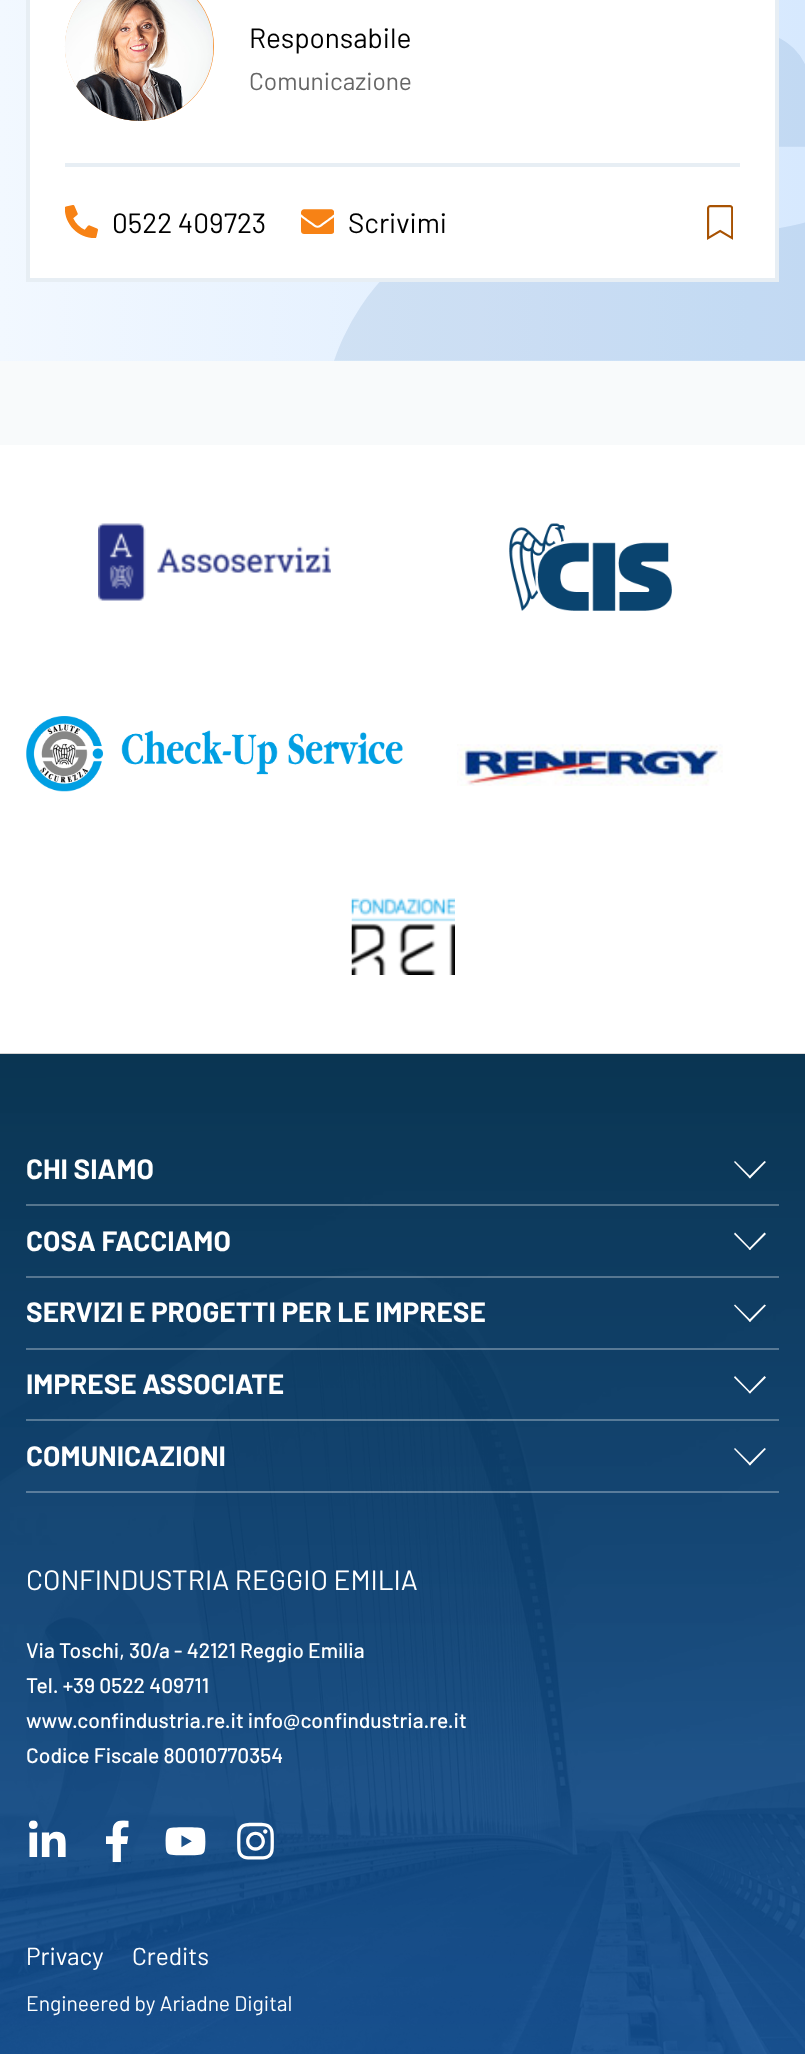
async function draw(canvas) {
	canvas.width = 805;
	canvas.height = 2054;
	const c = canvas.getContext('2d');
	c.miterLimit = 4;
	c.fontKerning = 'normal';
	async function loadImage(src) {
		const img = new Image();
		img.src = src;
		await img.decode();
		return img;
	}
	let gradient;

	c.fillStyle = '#f8fafb';
	c.fillRect(0, 0, 805, 2054);
	gradient = c.createLinearGradient(0, -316, 805, -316);
	gradient.addColorStop(0, '#f2f8ff');
	gradient.addColorStop(1, '#d7e9fe');
	c.fillStyle = gradient;
	c.fillRect(0, 0, 805, 361);
	c.drawImage(await loadImage('img5.png'), 334, 38, 471, 323);
	c.fillStyle = '#fff';
	c.beginPath();
	c.rect(28, -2, 749, 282);
	c.fill();
	c.strokeStyle = '#e7eef4';
	c.lineWidth = 4;
	c.stroke();
	c.fillStyle = '#f78215';
	c.beginPath();
	c.arc(139.5, 46.5, 74.5, 0, 2 * Math.PI);
	c.fill();
	c.drawImage(await loadImage('img1.png'), 65, 0, 149, 121);
	c.font = '28px Barlow';
	c.fillStyle = '#000';
	c.fillText('Responsabile', 249, 48);
	c.font = '24.5px Barlow';
	c.fillStyle = '#666';
	c.fillText('Comunicazione', 249, 90);
	c.fillStyle = '#e7eef4';
	c.fillRect(65, 163, 675, 4);
	c.drawImage(await loadImage('img2.png'), 65, 205, 33, 33);
	c.font = '28px Barlow';
	c.fillStyle = '#000';
	c.fillText('0522 409723', 112, 233);
	c.drawImage(await loadImage('img3.png'), 301, 209, 33, 25);
	c.fillText('Scrivimi', 348, 233);
	c.drawImage(await loadImage('img4.png'), 707, 205, 26, 35);
	c.fillStyle = '#fff';
	c.fillRect(0, 445, 805, 609);
	c.drawImage(await loadImage('img6.png'), 98, 523, 233, 78);
	c.drawImage(await loadImage('img7.png'), 509, 523, 163, 88);
	c.drawImage(await loadImage('img8.png'), 26, 716, 377, 76);
	c.drawImage(await loadImage('img9.png'), 457, 744, 266, 42);
	c.drawImage(await loadImage('img10.png'), 351, 898, 104, 77);
	c.drawImage(await loadImage('img11.png'), 0, 1053, 805, 1001);
	c.fillStyle = '#55758d';
	c.fillRect(26, 1204, 753, 2);
	c.font = 'bold 28px Barlow';
	c.fillStyle = '#fff';
	c.fillText('CHI SIAMO', 26, 1179);
	c.beginPath();
	c.moveTo(764.5, 1161);
	c.lineTo(766, 1162);
	c.lineTo(750, 1178.5);
	c.lineTo(748.5, 1177);
	c.closePath();
	c.fill();
	c.beginPath();
	c.moveTo(735, 1161);
	c.lineTo(751, 1177);
	c.lineTo(750, 1178.5);
	c.lineTo(734, 1162);
	c.closePath();
	c.fill();
	c.fillStyle = '#ffffff4d';
	c.fillRect(26, 1276, 753, 2);
	c.fillStyle = '#fff';
	c.fillText('COSA FACCIAMO', 26, 1251);
	c.beginPath();
	c.moveTo(764.5, 1232.5);
	c.lineTo(766, 1234);
	c.lineTo(750, 1250);
	c.lineTo(748.5, 1249);
	c.closePath();
	c.fill();
	c.beginPath();
	c.moveTo(735, 1232.5);
	c.lineTo(751, 1249);
	c.lineTo(750, 1250);
	c.lineTo(734, 1234);
	c.closePath();
	c.fill();
	c.fillStyle = '#ffffff4d';
	c.fillRect(26, 1348, 753, 2);
	c.fillStyle = '#fff';
	c.fillText('SERVIZI E PROGETTI PER LE IMPRESE', 26, 1322);
	c.beginPath();
	c.moveTo(764.5, 1304.5);
	c.lineTo(766, 1305.5);
	c.lineTo(750, 1322);
	c.lineTo(748.5, 1320.5);
	c.closePath();
	c.fill();
	c.beginPath();
	c.moveTo(735, 1304.5);
	c.lineTo(751, 1320.5);
	c.lineTo(750, 1322);
	c.lineTo(734, 1305.5);
	c.closePath();
	c.fill();
	c.fillStyle = '#ffffff4d';
	c.fillRect(26, 1419, 753, 2);
	c.fillStyle = '#fff';
	c.fillText('IMPRESE ASSOCIATE', 26, 1394);
	c.beginPath();
	c.moveTo(764.5, 1376);
	c.lineTo(766, 1377.5);
	c.lineTo(750, 1393.5);
	c.lineTo(748.5, 1392.5);
	c.closePath();
	c.fill();
	c.beginPath();
	c.moveTo(735, 1376);
	c.lineTo(751, 1392.5);
	c.lineTo(750, 1393.5);
	c.lineTo(734, 1377.5);
	c.closePath();
	c.fill();
	c.fillStyle = '#ffffff4d';
	c.fillRect(26, 1491, 753, 2);
	c.fillStyle = '#fff';
	c.fillText('COMUNICAZIONI', 26, 1466);
	c.beginPath();
	c.moveTo(764.5, 1448);
	c.lineTo(766, 1449);
	c.lineTo(750, 1465.5);
	c.lineTo(748.5, 1464);
	c.closePath();
	c.fill();
	c.beginPath();
	c.moveTo(735, 1448);
	c.lineTo(751, 1464);
	c.lineTo(750, 1465.5);
	c.lineTo(734, 1449);
	c.closePath();
	c.fill();
	c.font = '28px Barlow';
	c.fillText('CONFINDUSTRIA REGGIO EMILIA', 26, 1590);
	c.font = '500 21px Barlow';
	for (const [text, x, y] of [
		['Via Toschi, 30/a - 42121 Reggio Emilia', 26, 1658],
		['Tel. +39 0522 409711', 26, 1693],
		['www.confindustria.re.it info@confindustria.re.it', 26, 1728],
		['Codice Fiscale 80010770354', 26, 1763],
	]) {
		c.fillText(text, x, y);
	}
	c.drawImage(await loadImage('img12.png'), 28, 1820, 38, 37);
	c.drawImage(await loadImage('img13.png'), 106, 1820, 23, 42);
	c.drawImage(await loadImage('img14.png'), 165, 1827, 41, 29);
	c.drawImage(await loadImage('img15.png'), 237, 1822, 37, 38);
	c.font = '24.5px Barlow';
	c.fillText('Privacy', 26, 1965);
	c.fillText('Credits', 132, 1965);
	c.font = '21px Barlow';
	c.fillText('Engineered by Ariadne Digital', 26, 2011);
}

draw(document.querySelector('canvas'));
